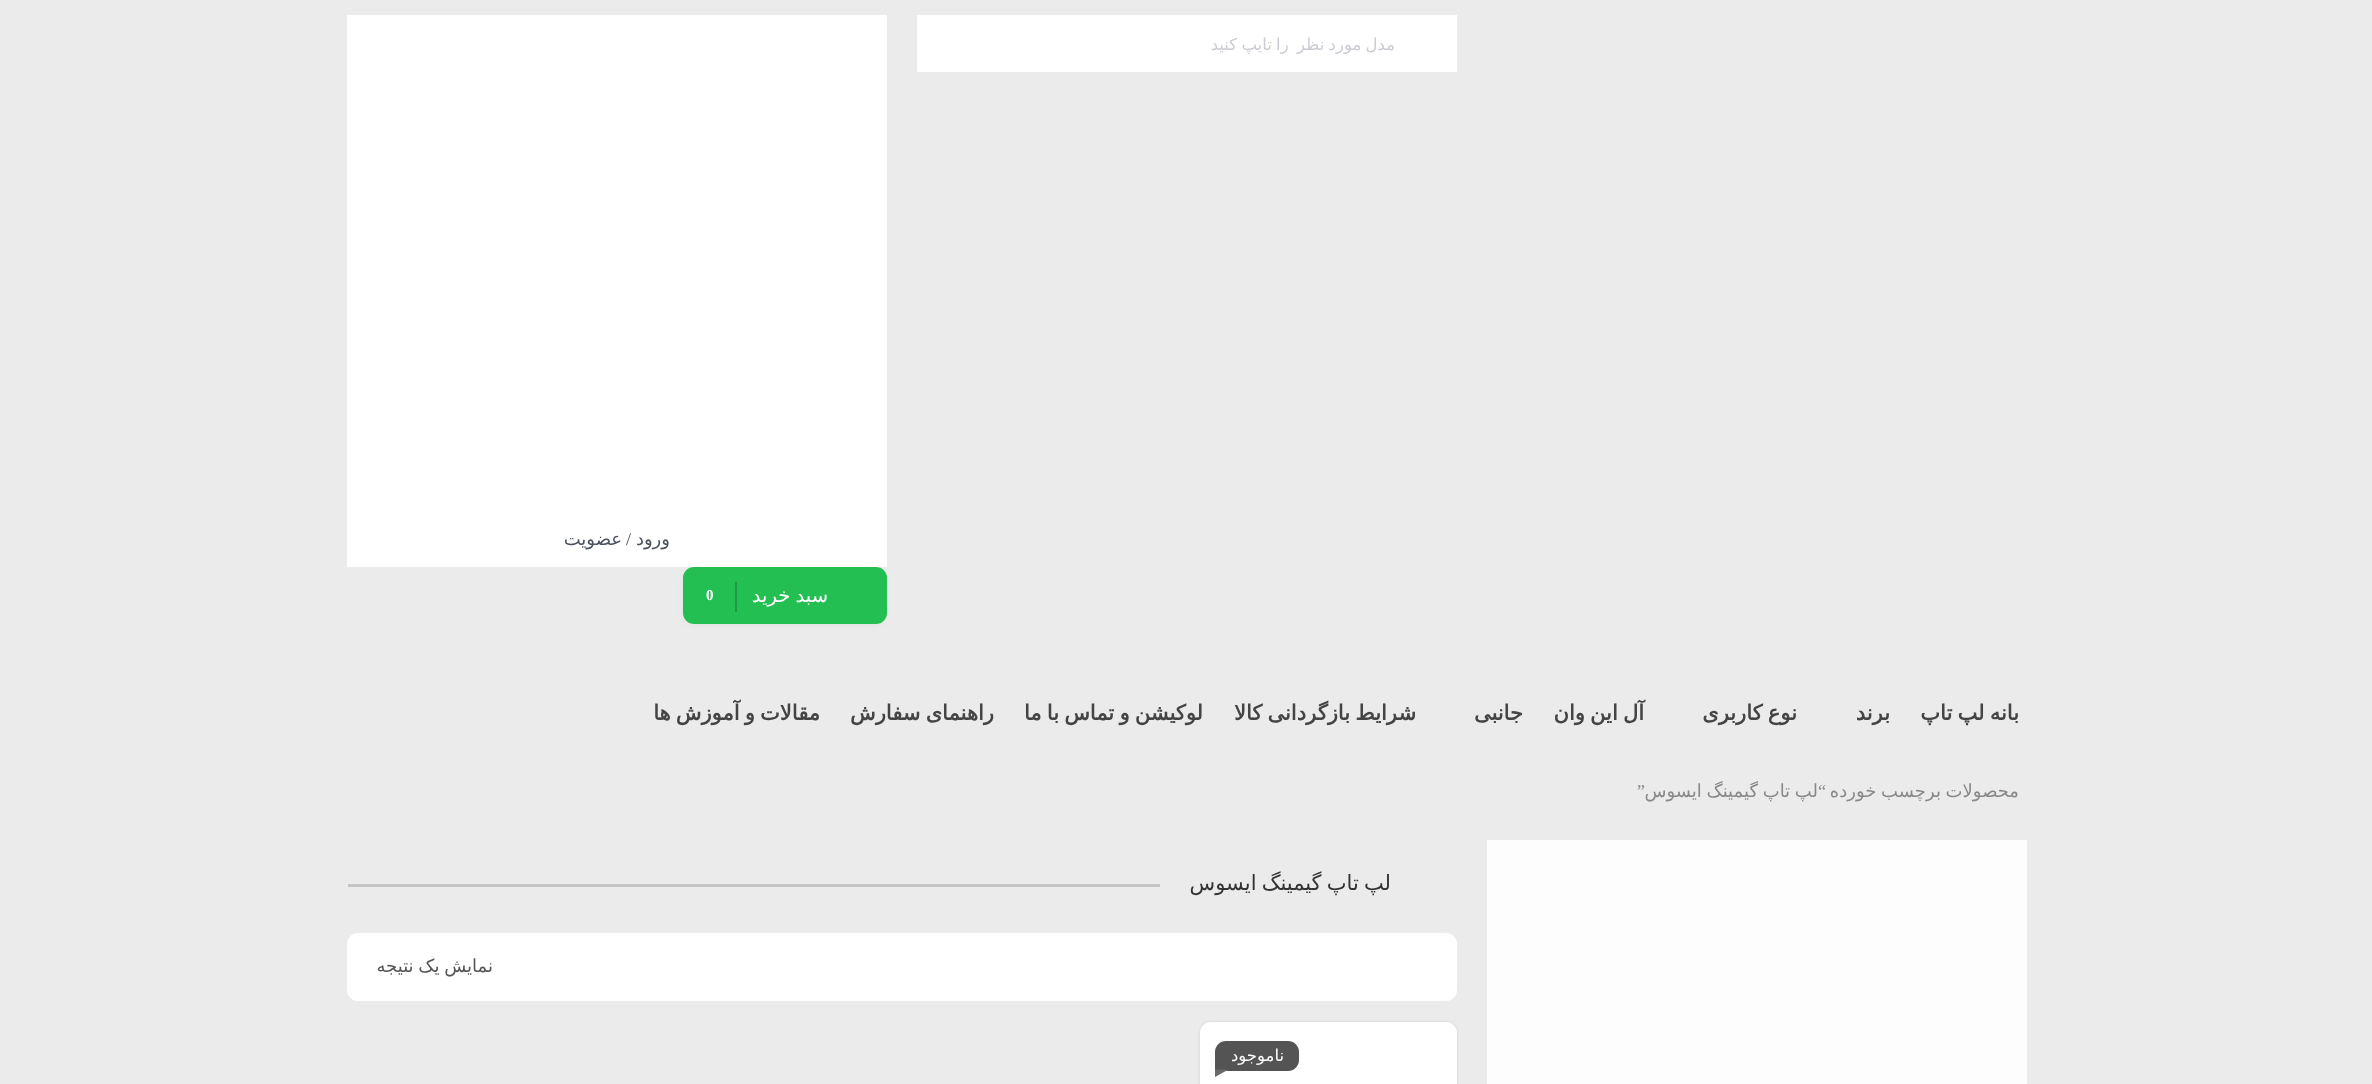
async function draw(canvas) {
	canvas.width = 2372;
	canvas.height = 1084;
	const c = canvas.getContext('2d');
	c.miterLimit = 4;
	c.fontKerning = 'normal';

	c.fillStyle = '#ebebeb';
	c.fillRect(0, 0, 2372, 1084);
	c.fillStyle = '#fff';
	c.fillRect(917, 15, 540, 57);
	c.save();
	c.beginPath();
	c.rect(923, 35, 472, 19);
	c.clip();
	c.wordSpacing = '-1px';
	c.direction = 'rtl';
	c.font = '16.5px DejaVu Sans';
	c.fillStyle = '#cbccd2';
	c.fillText('مدل مورد نظر  را تایپ کنید', 1395, 50);
	c.restore();
	c.fillRect(347, 15, 540, 552);
	c.direction = 'rtl';
	c.font = '18px DejaVu Sans';
	c.fillStyle = '#4a515f';
	c.fillText('ورود', 670, 545);
	c.font = '18px Liberation Serif';
	c.fillText('/', 631, 545);
	c.font = '18px DejaVu Sans';
	c.fillText('عضویت', 622, 545);
	c.fillStyle = '#0000001a';
	c.filter = 'blur(5px)';
	c.beginPath();
	c.roundRect(687, 573, 195, 48, 6);
	c.fill();
	c.filter = 'none';
	c.fillStyle = '#23bf53';
	c.beginPath();
	c.roundRect(683, 567, 204, 57, 11);
	c.fill();
	c.wordSpacing = '-1px';
	c.font = '19.5px DejaVu Sans';
	c.fillStyle = '#fff';
	c.fillText('سبد خرید', 828, 602);
	c.fillStyle = '#1c9942';
	c.fillRect(735, 582, 2, 30);
	c.wordSpacing = '0px';
	c.direction = 'ltr';
	c.font = 'bold 15px Liberation Serif';
	c.fillStyle = '#fff';
	c.fillText('0', 706, 600);
	c.wordSpacing = '-1.5px';
	c.direction = 'rtl';
	c.font = 'bold 21px DejaVu Sans';
	c.fillStyle = '#444';
	c.fillText('بانه لپ تاپ', 2019, 720);
	c.wordSpacing = '0px';
	c.fillText('برند', 1890, 720);
	c.wordSpacing = '-1.5px';
	c.fillText('نوع کاربری', 1797, 720);
	c.fillText('آل این وان', 1644, 720);
	c.wordSpacing = '0px';
	c.fillText('جانبی', 1523, 720);
	c.wordSpacing = '-1.5px';
	for (const [text, x, y] of [
		['شرایط بازگردانی کالا', 1416, 720],
		['لوکیشن و تماس با ما', 1203, 720],
		['راهنمای سفارش', 994, 720],
		['مقالات و آموزش ها', 820, 720],
	]) {
		c.fillText(text, x, y);
	}
	c.wordSpacing = '-1px';
	c.font = '18px DejaVu Sans';
	c.fillStyle = '#888';
	c.fillText('محصولات برچسب خورده', 2019, 797);
	c.fillText('لپ تاپ گیمینگ ایسوس', 1818, 797);
	c.wordSpacing = '0px';
	c.font = '18px Liberation Serif';
	c.fillText('“', 1826, 797);
	c.fillText('”', 1645, 797);
	c.fillStyle = '#fdfdfd';
	c.fillRect(1487, 840, 540, 244);
	c.wordSpacing = '-1.5px';
	c.font = '21px DejaVu Sans';
	c.fillStyle = '#333';
	c.fillText('لپ تاپ گیمینگ ایسوس', 1391, 890);
	c.fillStyle = '#c5c5c5';
	c.fillRect(348, 884, 812, 3);
	c.fillStyle = '#fff';
	c.beginPath();
	c.roundRect(347, 933, 1110, 68, 11);
	c.fill();
	c.wordSpacing = '-1px';
	c.font = '18px DejaVu Sans';
	c.fillStyle = '#555';
	c.fillText('نمایش یک نتیجه', 493, 972);
	c.fillStyle = '#0000001a';
	c.filter = 'blur(1.5px)';
	c.beginPath();
	c.roundRect(1200, 1022, 257, 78, 11);
	c.fill();
	c.filter = 'none';
	c.fillStyle = '#fff';
	c.beginPath();
	c.roundRect(1200, 1022, 257, 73, 11);
	c.fill();
	c.fillStyle = '#545454';
	c.beginPath();
	c.roundRect(1215, 1041, 84, 30, [11, 11, 11, 0]);
	c.fill();
	c.wordSpacing = '0px';
	c.font = '16.5px DejaVu Sans';
	c.fillStyle = '#fff';
	c.fillText('ناموجود', 1284, 1061);
	c.fillStyle = '#686868';
	c.beginPath();
	c.moveTo(1215, 1069.5);
	c.lineTo(1228.5, 1069.5);
	c.lineTo(1215, 1077);
	c.closePath();
	c.fill();
}

draw(document.querySelector('canvas'));
